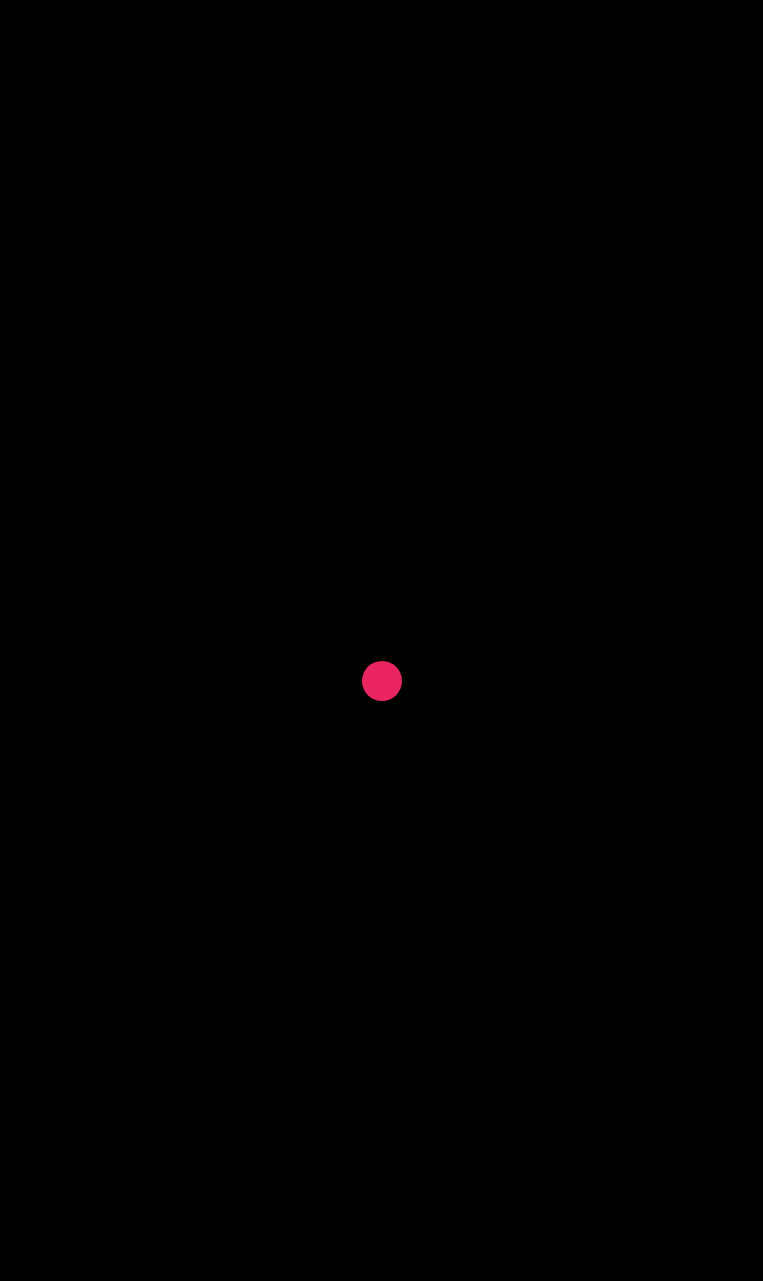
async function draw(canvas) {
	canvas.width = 763;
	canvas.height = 1281;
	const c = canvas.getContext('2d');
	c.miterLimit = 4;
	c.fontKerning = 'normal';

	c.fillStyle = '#000';
	c.fillRect(0, 0, 763, 1281);
	c.fillStyle = '#e82561';
	c.beginPath();
	c.arc(382, 681, 20, 0, 2 * Math.PI);
	c.fill();
}

draw(document.querySelector('canvas'));
